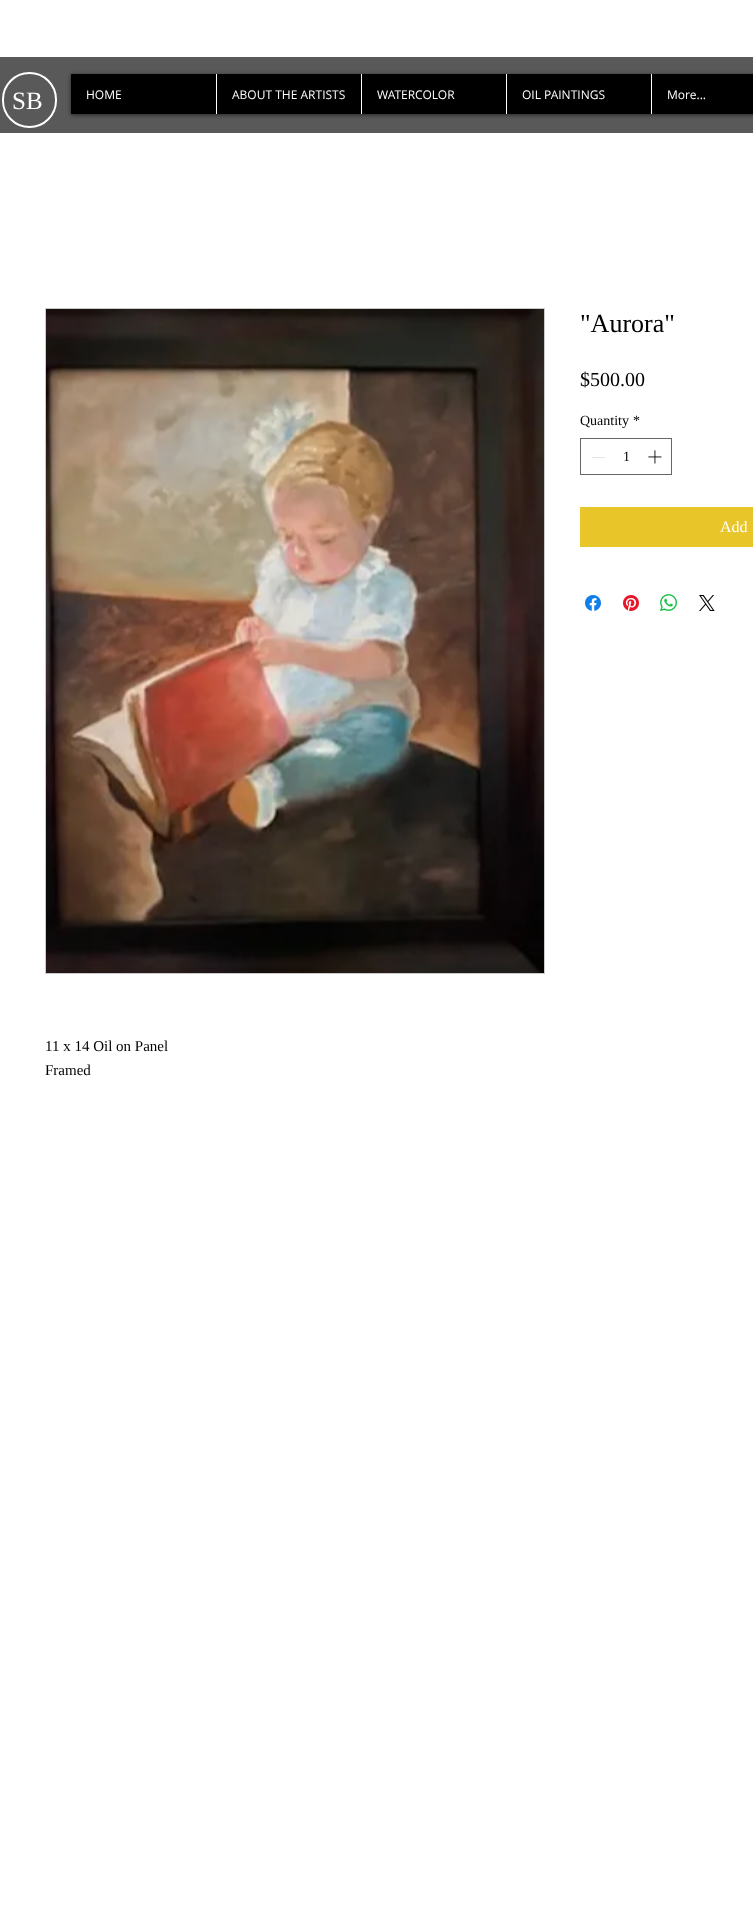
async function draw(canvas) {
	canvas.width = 753;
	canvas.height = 1918;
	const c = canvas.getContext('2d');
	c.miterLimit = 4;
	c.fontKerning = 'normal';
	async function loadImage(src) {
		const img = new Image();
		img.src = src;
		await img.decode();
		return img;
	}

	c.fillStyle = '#fff';
	c.fillRect(0, 0, 753, 1918);
	c.fillStyle = '#595959';
	c.fillRect(0, 57, 753, 76);
	c.beginPath();
	c.roundRect(3, 73, 53, 54, 26.5);
	c.strokeStyle = '#fff';
	c.lineWidth = 2;
	c.stroke();
	c.font = '25px Liberation Serif';
	c.fillStyle = '#fff';
	c.fillText('SB', 12, 109);
	c.fillStyle = '#00000099';
	c.filter = 'blur(2px)';
	c.beginPath();
	c.rect(71, 75, 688, 40);
	c.fill();
	c.filter = 'none';
	c.fillStyle = '#000';
	c.fillRect(71, 74, 682, 40);
	c.font = '12px Open Sans';
	c.fillStyle = '#fff';
	c.fillText('HOME', 86, 99);
	c.fillRect(216, 74, 1, 40);
	c.fillText('ABOUT THE ARTISTS', 232, 99);
	c.fillRect(361, 74, 1, 40);
	c.fillText('WATERCOLOR', 377, 99);
	c.fillRect(506, 74, 1, 40);
	c.fillText('OIL PAINTINGS', 522, 99);
	c.fillRect(651, 74, 1, 40);
	c.fillText('More...', 667, 99);
	c.font = '26px Liberation Serif';
	c.fillStyle = '#000';
	c.fillText('"Aurora"', 580, 332);
	c.font = '20px Liberation Serif';
	c.fillText('$500.00', 580, 386);
	c.font = '14px Liberation Serif';
	c.fillText('Quantity', 580, 425);
	c.fillText('*', 633, 425);
	c.strokeStyle = '#666';
	c.lineWidth = 1;
	c.strokeRect(580.5, 438.5, 91, 36);
	c.fillStyle = '#e3e3e3';
	c.fillRect(592, 457, 13, 1);
	c.fillStyle = '#000';
	c.fillText('1', 623, 461);
	c.drawImage(await loadImage('img1.png'), 648, 450, 14, 14);
	c.fillStyle = '#e8c529';
	c.fillRect(580, 507, 173, 40);
	c.font = '16px Liberation Serif';
	c.fillStyle = '#fff';
	c.fillText('Add', 720, 532);
	c.drawImage(await loadImage('img2.png'), 585, 595, 16, 16);
	c.drawImage(await loadImage('img3.png'), 623, 595, 16, 16);
	c.drawImage(await loadImage('img4.png'), 660, 594, 17, 17);
	c.drawImage(await loadImage('img5.png'), 699, 595, 16, 16);
	c.strokeStyle = '#cacaca';
	c.strokeRect(45.5, 308.5, 499, 665);
	c.drawImage(await loadImage('img6.png'), 46, 309, 498, 664);
	c.font = '15px Liberation Serif';
	c.fillStyle = '#000';
	c.fillText('11 x 14 Oil on Panel', 45, 1051);
	c.fillText('Framed', 45, 1075);
}

draw(document.querySelector('canvas'));
